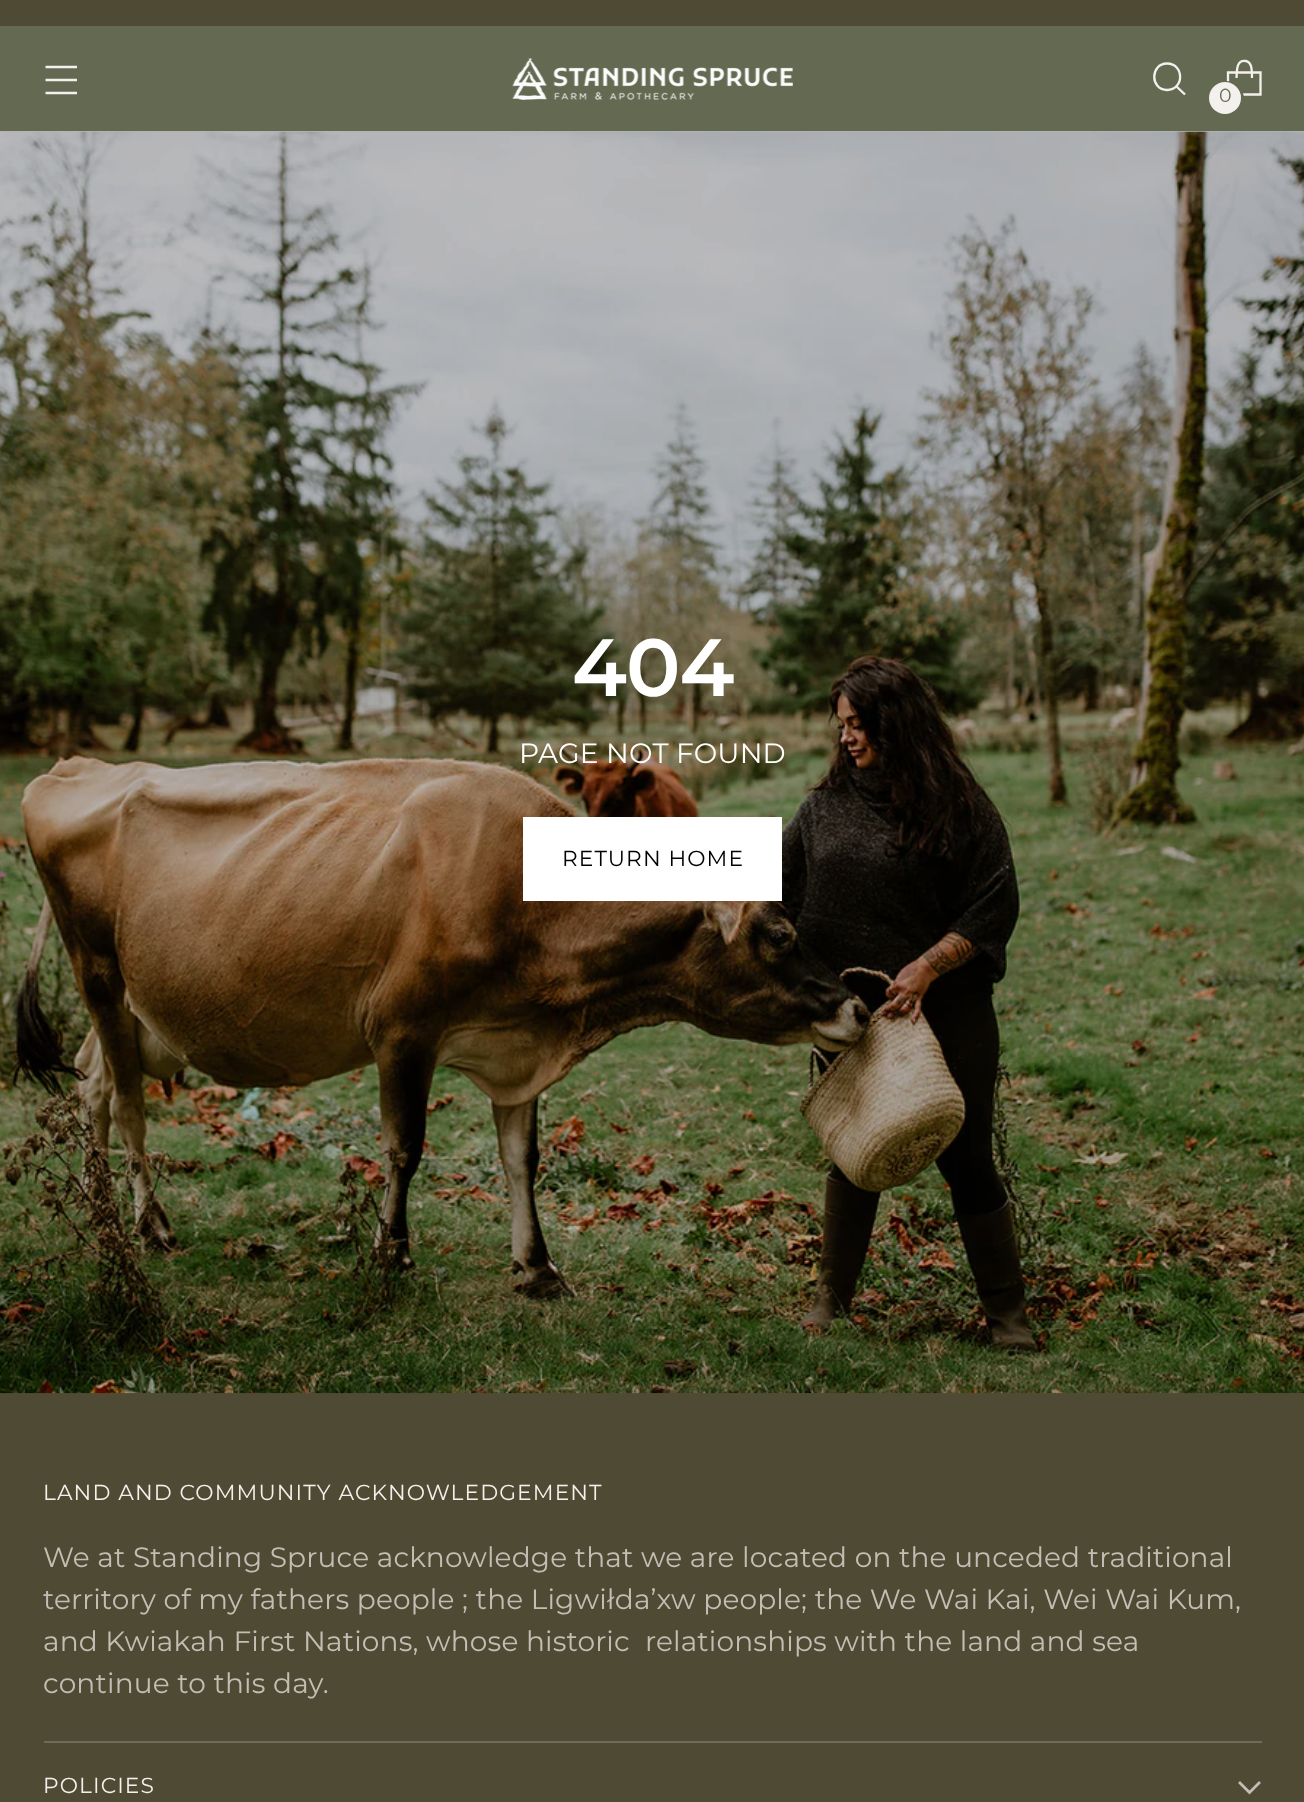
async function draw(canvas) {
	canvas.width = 1304;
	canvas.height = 1802;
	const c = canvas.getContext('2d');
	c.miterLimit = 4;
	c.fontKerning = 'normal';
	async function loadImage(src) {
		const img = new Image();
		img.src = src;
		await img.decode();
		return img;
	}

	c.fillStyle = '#b6b4b2';
	c.fillRect(0, 0, 1304, 1802);
	c.fillStyle = '#4e4a33';
	c.fillRect(0, 0, 1304, 26);
	c.fillStyle = '#646a52';
	c.fillRect(0, 26, 1304, 105);
	c.beginPath();
	c.moveTo(45.5, 80);
	c.lineTo(77, 80);
	c.moveTo(45.5, 67);
	c.lineTo(77, 67);
	c.moveTo(45.5, 93);
	c.lineTo(77, 93);
	c.strokeStyle = '#f3f0ed';
	c.lineWidth = 2.3;
	c.stroke();
	c.drawImage(await loadImage('img1.png'), 512, 58, 281, 42);
	c.beginPath();
	c.moveTo(1167, 90);
	c.bezierCurveTo(1184.5, 90, 1184.5, 63.5, 1167, 63.5);
	c.bezierCurveTo(1150, 63.5, 1150, 90, 1167, 90);
	c.closePath();
	c.lineCap = 'round';
	c.stroke();
	c.beginPath();
	c.moveTo(1176.5, 86.5);
	c.lineTo(1185, 94.5);
	c.lineCap = 'butt';
	c.stroke();
	c.beginPath();
	c.moveTo(1252, 78);
	c.bezierCurveTo(1252, 74, 1252, 69.5, 1251, 66);
	c.bezierCurveTo(1250, 63.5, 1248.5, 61.5, 1246, 61);
	c.bezierCurveTo(1236, 59, 1237, 71.5, 1236.5, 78);
	c.lineJoin = 'bevel';
	c.stroke();
	c.beginPath();
	c.moveTo(1260.5, 94.5);
	c.lineTo(1260.5, 72.5);
	c.lineTo(1228, 72.5);
	c.lineTo(1228, 94.5);
	c.closePath();
	c.lineJoin = 'miter';
	c.stroke();
	c.beginPath();
	c.arc(1226, 99, 16.5, 0, 2 * Math.PI);
	c.strokeStyle = '#646a52';
	c.lineWidth = 3;
	c.stroke();
	c.fillStyle = '#f3f0ed';
	c.beginPath();
	c.arc(1225, 98, 16, 0, 2 * Math.PI);
	c.fill();
	c.letterSpacing = '0.15px';
	c.font = '19px Montserrat';
	c.fillStyle = '#646a52';
	c.fillText('0', 1219, 102);
	c.fillStyle = '#4e4a33';
	c.fillRect(0, 1393, 1304, 409);
	c.drawImage(await loadImage('img2.png'), 0, 131, 1304, 1263);
	c.letterSpacing = '-1px';
	c.font = '600 81px Montserrat';
	c.fillStyle = '#fff';
	c.fillText('404', 572, 696);
	c.letterSpacing = '0.15px';
	c.font = '28px Montserrat';
	c.fillText('PAGE NOT FOUND', 519, 763);
	c.save();
	c.beginPath();
	c.rect(523, 817, 259, 84);
	c.clip();
	c.beginPath();
	c.moveTo(460, 817);
	c.lineTo(797, 817);
	c.lineTo(845, 901);
	c.lineTo(509, 901);
	c.closePath();
	c.fill();
	c.restore();
	c.letterSpacing = '1.1px';
	c.font = '21.75px Montserrat';
	c.fillStyle = '#000';
	c.fillText('RETURN HOME', 562, 866);
	c.fillStyle = '#6f6b58';
	c.fillRect(44, 1741, 1218, 2);
	c.fillStyle = '#f3f0ed';
	c.fillText('LAND AND COMMUNITY ACKNOWLEDGEMENT', 43, 1500);
	c.letterSpacing = '0.15px';
	c.font = '28px Montserrat';
	c.fillStyle = '#c2beb5';
	for (const [text, x, y] of [
		['We at Standing Spruce acknowledge that we are located on the unceded traditional', 43, 1567],
		['territory of my fathers people ; the Ligwiłda’xw people; the We Wai Kai, Wei Wai Kum,', 43, 1609],
		['and Kwiakah First Nations, whose historic  relationships with the land and sea', 43, 1651],
		['continue to this day.', 43, 1693],
	]) {
		c.fillText(text, x, y);
	}
	c.letterSpacing = '1.1px';
	c.font = '21.75px Montserrat';
	c.fillStyle = '#f3f0ed';
	c.fillText('POLICIES', 43, 1793);
	c.beginPath();
	c.moveTo(1239, 1782);
	c.lineTo(1249.5, 1792.5);
	c.lineTo(1260, 1782);
	c.strokeStyle = '#c2beb5';
	c.lineWidth = 2.8;
	c.stroke();
}

draw(document.querySelector('canvas'));
